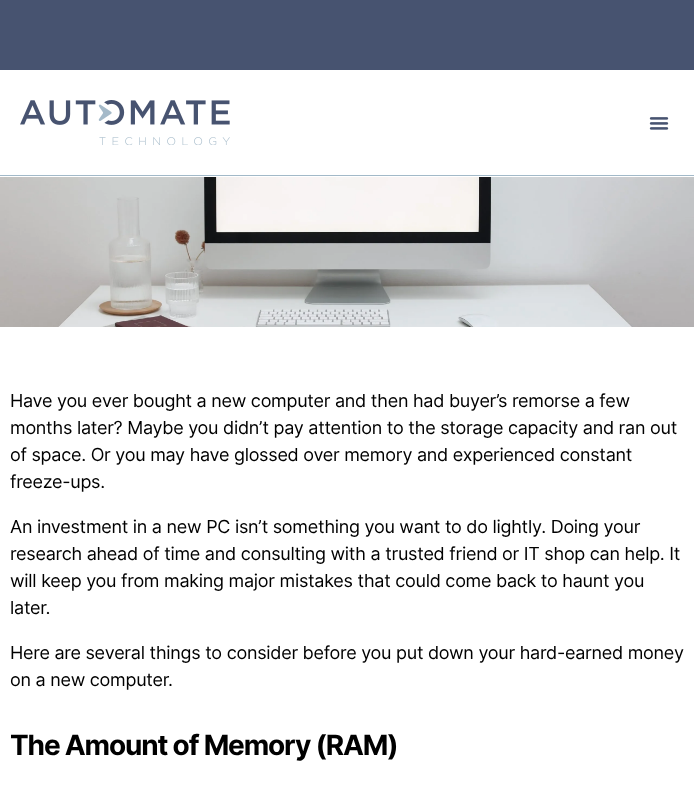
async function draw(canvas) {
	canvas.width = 694;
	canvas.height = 790;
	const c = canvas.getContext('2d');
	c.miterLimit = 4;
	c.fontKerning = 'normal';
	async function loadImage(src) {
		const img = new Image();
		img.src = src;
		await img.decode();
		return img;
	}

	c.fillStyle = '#fff';
	c.fillRect(0, 0, 694, 790);
	c.fillStyle = '#475370';
	c.fillRect(0, 0, 694, 70);
	c.fillStyle = '#a2b9c8';
	c.fillRect(0, 175, 694, 1);
	c.drawImage(await loadImage('img1.png'), 20, 100, 210, 45);
	c.drawImage(await loadImage('img2.png'), 649, 117, 20, 13);
	c.drawImage(await loadImage('img3.png'), 0, 177, 694, 150);
	c.letterSpacing = '-0.27px';
	c.font = '18px Inter';
	c.fillStyle = '#000';
	for (const [text, x, y] of [
		['Have you ever bought a new computer and then had buyer’s remorse a few', 10, 407],
		['months later? Maybe you didn’t pay attention to the storage capacity and ran out', 10, 434],
		['of space. Or you may have glossed over memory and experienced constant', 10, 461],
		['freeze-ups.', 10, 488],
		['An investment in a new PC isn’t something you want to do lightly. Doing your', 10, 533],
		['research ahead of time and consulting with a trusted friend or IT shop can help. It', 10, 560],
		['will keep you from making major mistakes that could come back to haunt you', 10, 587],
		['later.', 10, 614],
		['Here are several things to consider before you put down your hard-earned money', 10, 659],
		['on a new computer.', 10, 686],
	]) {
		c.fillText(text, x, y);
	}
	c.letterSpacing = '-1.15px';
	c.font = 'bold 28px Inter';
	c.fillText('The Amount of Memory (RAM)', 10, 755);
}

draw(document.querySelector('canvas'));
